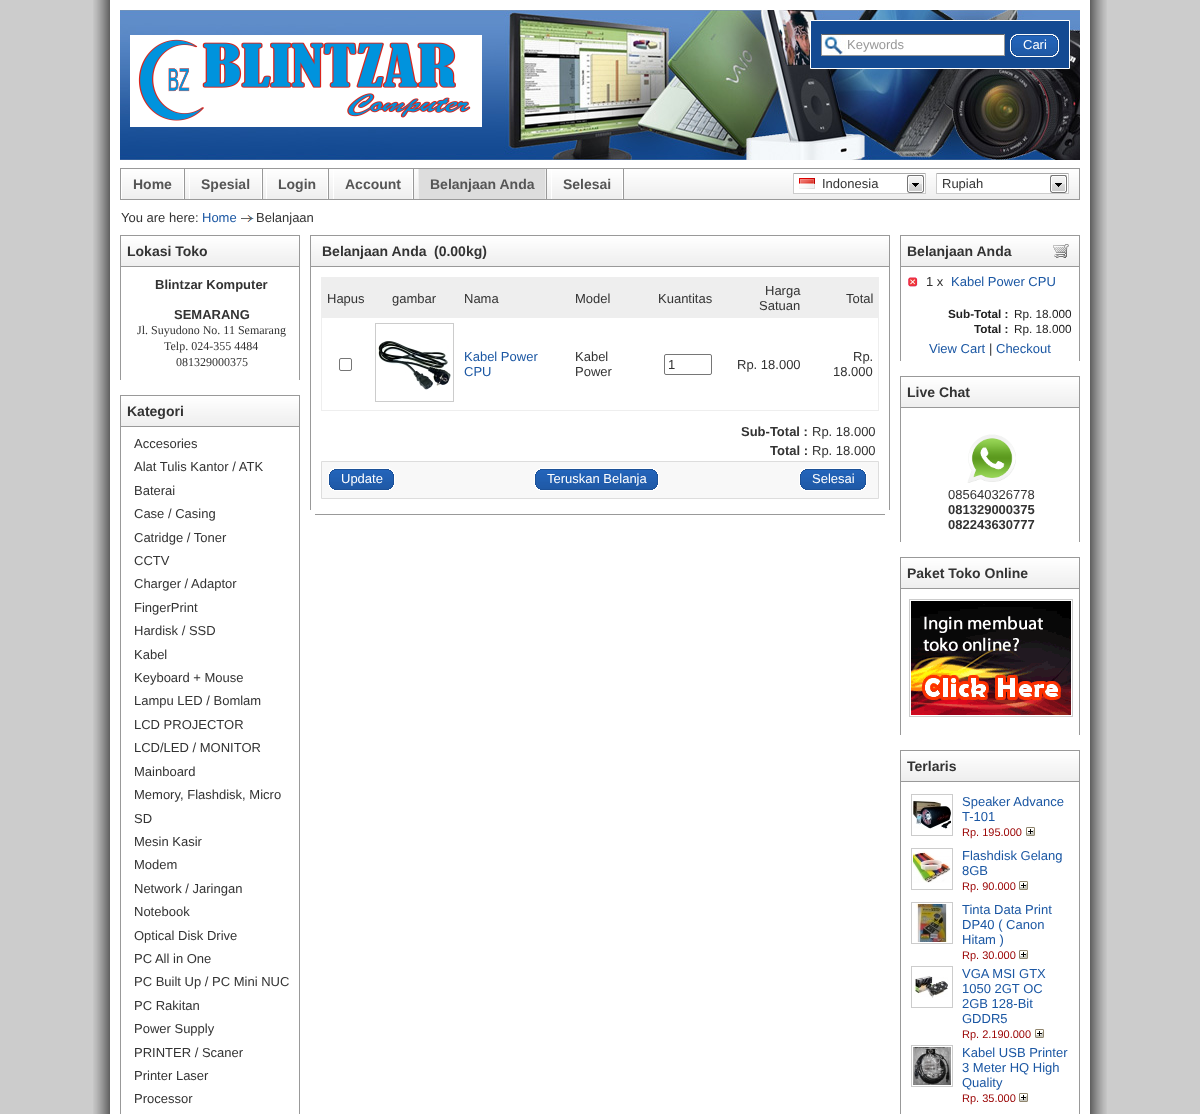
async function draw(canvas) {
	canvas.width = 1200;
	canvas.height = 1114;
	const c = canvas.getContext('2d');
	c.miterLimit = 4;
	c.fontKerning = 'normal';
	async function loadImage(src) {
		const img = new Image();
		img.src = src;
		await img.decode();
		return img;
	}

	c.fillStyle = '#ccc';
	c.fillRect(0, 0, 1200, 1114);
	c.drawImage(await loadImage('img1.png'), 93, 0, 1014, 1114);
	c.fillStyle = '#fff';
	c.fillRect(110, 0, 980, 1114);
	c.drawImage(await loadImage('img2.png'), 120, 10, 960, 150);
	c.drawImage(await loadImage('img3.png'), 130, 35, 352, 92);
	c.fillStyle = '#144a92';
	c.beginPath();
	c.rect(810.5, 20.5, 259, 48);
	c.fill();
	c.strokeStyle = '#fff';
	c.stroke();
	c.fillStyle = '#fff';
	c.fillRect(846, 35, 158, 20);
	c.drawImage(await loadImage('img4.png'), 822, 35, 24, 20);
	for (const [x, y, w, h, color] of [
		[821, 34, 184, 1, '#666'],
		[1004, 34, 1, 22, '#999'],
		[821, 55, 184, 1, '#999'],
		[821, 34, 1, 22, '#999'],
	]) {
		c.fillStyle = color;
		c.fillRect(x, y, w, h);
	}
	c.font = '13px Liberation Sans';
	c.fillText('Keywords', 847, 49);
	c.drawImage(await loadImage('img5.png'), 1010, 34, 9, 23);
	c.drawImage(await loadImage('img6.png'), 1019, 34, 40, 23);
	c.fillStyle = '#fff';
	c.fillText('Cari', 1023, 49);
	c.drawImage(await loadImage('img7.png'), 120, 168, 959, 32);
	c.fillStyle = '#999';
	c.fillRect(1079, 168, 1, 32);
	c.fillRect(120, 169, 1, 31);
	c.font = 'bold 14px Liberation Sans';
	c.fillStyle = '#555';
	c.fillText('Home', 133, 189);
	c.fillStyle = '#fff';
	c.fillRect(121, 169, 1, 30);
	c.drawImage(await loadImage('img8.png'), 183, 169, 2, 30);
	c.fillStyle = '#555';
	c.fillText('Spesial', 201, 189);
	c.fillStyle = '#fff';
	c.fillRect(189, 169, 1, 30);
	c.drawImage(await loadImage('img8.png'), 261, 169, 2, 30);
	c.fillStyle = '#555';
	c.fillText('Login', 278, 189);
	c.fillStyle = '#fff';
	c.fillRect(266, 169, 1, 30);
	c.drawImage(await loadImage('img8.png'), 327, 169, 2, 30);
	c.fillStyle = '#555';
	c.fillText('Account', 345, 189);
	c.fillStyle = '#fff';
	c.fillRect(333, 169, 1, 30);
	c.drawImage(await loadImage('img8.png'), 412, 169, 2, 30);
	c.fillStyle = '#ddd';
	c.fillRect(419, 169, 126, 30);
	c.fillStyle = '#555';
	c.fillText('Belanjaan Anda', 430, 189);
	c.fillStyle = '#eee';
	c.fillRect(418, 169, 1, 30);
	c.drawImage(await loadImage('img9.png'), 545, 169, 2, 30);
	c.fillStyle = '#555';
	c.fillText('Selesai', 563, 189);
	c.fillStyle = '#fff';
	c.fillRect(551, 169, 1, 30);
	c.drawImage(await loadImage('img8.png'), 622, 169, 2, 30);
	c.fillRect(794, 174, 131, 19);
	c.drawImage(await loadImage('img10.png'), 907, 175, 17, 18);
	for (const [x, y, w, h, color] of [
		[793, 173, 133, 1, '#aaa'],
		[925, 173, 1, 21, '#ccc'],
		[793, 193, 133, 1, '#ccc'],
		[793, 173, 1, 21, '#ccc'],
	]) {
		c.fillStyle = color;
		c.fillRect(x, y, w, h);
	}
	c.drawImage(await loadImage('img11.png'), 799, 178, 16, 11);
	c.font = '13px Liberation Sans';
	c.fillStyle = '#333';
	c.fillText('Indonesia', 822, 188);
	c.fillStyle = '#fff';
	c.fillRect(937, 174, 131, 19);
	c.drawImage(await loadImage('img10.png'), 1050, 175, 17, 18);
	for (const [x, y, w, h, color] of [
		[936, 173, 133, 1, '#aaa'],
		[1068, 173, 1, 21, '#ccc'],
		[936, 193, 133, 1, '#ccc'],
		[936, 173, 1, 21, '#ccc'],
	]) {
		c.fillStyle = color;
		c.fillRect(x, y, w, h);
	}
	c.fillStyle = '#333';
	c.fillText('Rupiah', 942, 188);
	c.fillText('You are here:', 121, 222);
	c.fillStyle = '#1b57a3';
	c.fillText('Home', 202, 222);
	c.drawImage(await loadImage('img12.png'), 241, 215, 13, 7);
	c.fillStyle = '#333';
	c.fillText('Belanjaan', 256, 222);
	c.drawImage(await loadImage('img13.png'), 120, 235, 180, 32);
	c.font = 'bold 14px Liberation Sans';
	c.fillText('Lokasi Toko', 127, 256);
	c.fillStyle = '#999';
	c.fillRect(299, 267, 1, 113);
	c.fillRect(120, 267, 1, 113);
	c.font = 'bold 13px Liberation Sans';
	c.fillStyle = '#333';
	c.fillText('Blintzar Komputer', 155, 289);
	c.fillText('SEMARANG', 174, 319);
	c.font = '12px Liberation Serif';
	for (const [text, x, y] of [
		['Jl. Suyudono No. 11 Semarang', 137, 334],
		['Telp. 024-355 4484', 164, 350],
		['081329000375', 176, 366],
	]) {
		c.fillText(text, x, y);
	}
	c.drawImage(await loadImage('img13.png'), 120, 395, 180, 32);
	c.font = 'bold 14px Liberation Sans';
	c.fillText('Kategori', 127, 416);
	c.fillStyle = '#999';
	c.fillRect(299, 427, 1, 687);
	c.fillRect(120, 427, 1, 687);
	c.font = '13px Liberation Sans';
	c.fillStyle = '#333';
	for (const [text, x, y] of [
		['Accesories', 134, 448],
		['Alat Tulis Kantor / ATK', 134, 471],
		['Baterai', 134, 495],
		['Case / Casing', 134, 518],
		['Catridge / Toner', 134, 542],
		['CCTV', 134, 565],
		['Charger / Adaptor', 134, 588],
		['FingerPrint', 134, 612],
		['Hardisk / SSD', 134, 635],
		['Kabel', 134, 659],
		['Keyboard + Mouse', 134, 682],
		['Lampu LED / Bomlam', 134, 705],
		['LCD PROJECTOR', 134, 729],
		['LCD/LED / MONITOR', 134, 752],
		['Mainboard', 134, 776],
		['Memory, Flashdisk, Micro', 134, 799],
		['SD', 134, 823],
		['Mesin Kasir', 134, 846],
		['Modem', 134, 869],
		['Network / Jaringan', 134, 893],
		['Notebook', 134, 916],
		['Optical Disk Drive', 134, 940],
		['PC All in One', 134, 963],
		['PC Built Up / PC Mini NUC', 134, 986],
		['PC Rakitan', 134, 1010],
		['Power Supply', 134, 1033],
		['PRINTER / Scaner', 134, 1057],
		['Printer Laser', 134, 1080],
		['Processor', 134, 1103],
	]) {
		c.fillText(text, x, y);
	}
	c.drawImage(await loadImage('img14.png'), 310, 235, 5, 32);
	c.drawImage(await loadImage('img15.png'), 315, 235, 570, 32);
	c.font = 'bold 14px Liberation Sans';
	c.fillText('Belanjaan Anda', 322, 256);
	c.fillText('(0.00kg)', 434, 256);
	c.drawImage(await loadImage('img16.png'), 885, 235, 5, 32);
	for (const [x, y, w, h, color] of [
		[889, 267, 1, 243, '#999'],
		[310, 267, 1, 243, '#999'],
		[321, 277, 558, 1, '#eee'],
		[878, 277, 1, 134, '#eee'],
		[321, 410, 558, 1, '#eee'],
		[321, 277, 1, 134, '#eee'],
		[322, 278, 556, 40, '#eee'],
	]) {
		c.fillStyle = color;
		c.fillRect(x, y, w, h);
	}
	c.font = '13px Liberation Sans';
	c.fillStyle = '#333';
	for (const [text, x, y] of [
		['Hapus', 327, 303],
		['gambar', 392, 303],
		['Nama', 464, 303],
		['Model', 575, 303],
		['Kuantitas', 658, 303],
		['Harga', 765, 295],
		['Satuan', 759, 310],
		['Total', 846, 303],
	]) {
		c.fillText(text, x, y);
	}
	c.beginPath();
	c.roundRect(339.5, 358.5, 12, 12, 1.5);
	c.strokeStyle = '#767676';
	c.stroke();
	c.strokeStyle = '#ccc';
	c.strokeRect(375.5, 323.5, 78, 78);
	c.drawImage(await loadImage('img17.png'), 377, 341, 74, 49);
	c.fillStyle = '#1b57a3';
	c.fillText('Kabel Power', 464, 361);
	c.fillText('CPU', 464, 376);
	c.fillStyle = '#333';
	c.fillText('Kabel', 575, 361);
	c.fillText('Power', 575, 376);
	c.beginPath();
	c.roundRect(664.5, 354.5, 47, 20, 1.5);
	c.strokeStyle = '#767676';
	c.stroke();
	for (const [text, x, y] of [
		['1', 668, 369],
		['Rp. 18.000', 737, 369],
		['Rp.', 853, 361],
		['18.000', 833, 376],
	]) {
		c.fillText(text, x, y);
	}
	c.font = 'bold 13px Liberation Sans';
	c.fillText('Sub-Total :', 741, 436);
	c.font = '13px Liberation Sans';
	c.fillText('Rp. 18.000', 812, 436);
	c.font = 'bold 13px Liberation Sans';
	c.fillText('Total :', 770, 455);
	c.font = '13px Liberation Sans';
	c.fillText('Rp. 18.000', 812, 455);
	c.fillStyle = '#f8f8f8';
	c.beginPath();
	c.rect(321.5, 461.5, 557, 37);
	c.fill();
	c.strokeStyle = '#ddd';
	c.stroke();
	c.drawImage(await loadImage('img18.png'), 328, 468, 9, 23);
	c.drawImage(await loadImage('img19.png'), 337, 468, 58, 23);
	c.fillStyle = '#fff';
	c.fillText('Update', 341, 483);
	c.drawImage(await loadImage('img18.png'), 534, 468, 9, 23);
	c.drawImage(await loadImage('img20.png'), 543, 468, 116, 23);
	c.fillText('Teruskan Belanja', 547, 483);
	c.drawImage(await loadImage('img18.png'), 799, 468, 9, 23);
	c.drawImage(await loadImage('img21.png'), 808, 468, 59, 23);
	c.fillText('Selesai', 812, 483);
	c.fillStyle = '#999';
	c.fillRect(315, 514, 570, 1);
	c.drawImage(await loadImage('img22.png'), 900, 235, 180, 32);
	c.font = 'bold 14px Liberation Sans';
	c.fillStyle = '#333';
	c.fillText('Belanjaan Anda', 907, 256);
	c.fillStyle = '#999';
	c.fillRect(1079, 267, 1, 94);
	c.fillRect(900, 267, 1, 94);
	c.drawImage(await loadImage('img23.png'), 908, 277, 10, 10);
	c.font = '13px Liberation Sans';
	c.fillStyle = '#333';
	c.fillText('1 x', 926, 286);
	c.fillStyle = '#1b57a3';
	c.fillText('Kabel Power CPU', 951, 286);
	c.font = 'bold 11.75px Liberation Sans';
	c.fillStyle = '#222';
	c.fillText('Sub-Total :', 948, 318);
	c.font = '11.75px Liberation Sans';
	c.fillText('Rp. 18.000', 1014, 318);
	c.font = 'bold 11.75px Liberation Sans';
	c.fillText('Total :', 974, 333);
	c.font = '11.75px Liberation Sans';
	c.fillText('Rp. 18.000', 1014, 333);
	c.font = '13px Liberation Sans';
	c.fillStyle = '#1b57a3';
	c.fillText('View Cart', 929, 353);
	c.fillStyle = '#333';
	c.fillText('|', 989, 353);
	c.fillStyle = '#1b57a3';
	c.fillText('Checkout', 996, 353);
	c.drawImage(await loadImage('img13.png'), 900, 376, 180, 32);
	c.font = 'bold 14px Liberation Sans';
	c.fillStyle = '#333';
	c.fillText('Live Chat', 907, 397);
	c.fillStyle = '#999';
	c.fillRect(1079, 408, 1, 134);
	c.fillRect(900, 408, 1, 134);
	c.drawImage(await loadImage('img24.png'), 967, 434, 49, 49);
	c.font = '13px Liberation Sans';
	c.fillStyle = '#333';
	c.fillText('085640326778', 948, 499);
	c.font = 'bold 13px Liberation Sans';
	c.fillText('081329000375', 948, 514);
	c.fillText('082243630777', 948, 529);
	c.drawImage(await loadImage('img13.png'), 900, 557, 180, 32);
	c.font = 'bold 14px Liberation Sans';
	c.fillText('Paket Toko Online', 907, 578);
	c.fillStyle = '#999';
	c.fillRect(1079, 589, 1, 146);
	c.fillRect(900, 589, 1, 146);
	c.strokeStyle = '#ccc';
	c.strokeRect(909.5, 599.5, 163, 117);
	c.drawImage(await loadImage('img25.png'), 911, 601, 160, 114);
	c.drawImage(await loadImage('img13.png'), 900, 750, 180, 32);
	c.fillStyle = '#333';
	c.fillText('Terlaris', 907, 771);
	c.fillStyle = '#999';
	c.fillRect(1079, 782, 1, 332);
	c.fillRect(900, 782, 1, 332);
	c.strokeRect(911.5, 794.5, 41, 41);
	c.drawImage(await loadImage('img26.png'), 913, 800, 38, 29);
	c.font = '13px Liberation Sans';
	c.fillStyle = '#1b57a3';
	c.fillText('Speaker Advance', 962, 806);
	c.fillText('T-101', 962, 821);
	c.font = '11px Liberation Sans';
	c.fillStyle = '#900';
	c.fillText('Rp. 195.000', 962, 836);
	c.drawImage(await loadImage('img27.png'), 1026, 827, 9, 9);
	c.strokeRect(911.5, 848.5, 41, 41);
	c.drawImage(await loadImage('img28.png'), 913, 851, 38, 32);
	c.font = '13px Liberation Sans';
	c.fillStyle = '#1b57a3';
	c.fillText('Flashdisk Gelang', 962, 860);
	c.fillText('8GB', 962, 875);
	c.font = '11px Liberation Sans';
	c.fillStyle = '#900';
	c.fillText('Rp. 90.000', 962, 890);
	c.drawImage(await loadImage('img27.png'), 1019, 881, 9, 9);
	c.strokeRect(911.5, 902.5, 41, 41);
	c.drawImage(await loadImage('img29.png'), 916, 904, 32, 38);
	c.font = '13px Liberation Sans';
	c.fillStyle = '#1b57a3';
	for (const [text, x, y] of [
		['Tinta Data Print', 962, 914],
		['DP40 ( Canon', 962, 929],
		['Hitam )', 962, 944],
	]) {
		c.fillText(text, x, y);
	}
	c.font = '11px Liberation Sans';
	c.fillStyle = '#900';
	c.fillText('Rp. 30.000', 962, 959);
	c.drawImage(await loadImage('img27.png'), 1019, 950, 9, 9);
	c.strokeRect(911.5, 966.5, 41, 41);
	c.drawImage(await loadImage('img30.png'), 914, 976, 34, 22);
	c.font = '13px Liberation Sans';
	c.fillStyle = '#1b57a3';
	for (const [text, x, y] of [
		['VGA MSI GTX', 962, 978],
		['1050 2GT OC', 962, 993],
		['2GB 128-Bit', 962, 1008],
		['GDDR5', 962, 1023],
	]) {
		c.fillText(text, x, y);
	}
	c.font = '11px Liberation Sans';
	c.fillStyle = '#900';
	c.fillText('Rp. 2.190.000', 962, 1038);
	c.drawImage(await loadImage('img27.png'), 1035, 1029, 9, 9);
	c.strokeRect(911.5, 1045.5, 41, 41);
	c.drawImage(await loadImage('img31.png'), 913, 1047, 38, 38);
	c.font = '13px Liberation Sans';
	c.fillStyle = '#1b57a3';
	for (const [text, x, y] of [
		['Kabel USB Printer', 962, 1057],
		['3 Meter HQ High', 962, 1072],
		['Quality', 962, 1087],
	]) {
		c.fillText(text, x, y);
	}
	c.font = '11px Liberation Sans';
	c.fillStyle = '#900';
	c.fillText('Rp. 35.000', 962, 1102);
	c.drawImage(await loadImage('img27.png'), 1019, 1093, 9, 9);
}

draw(document.querySelector('canvas'));
